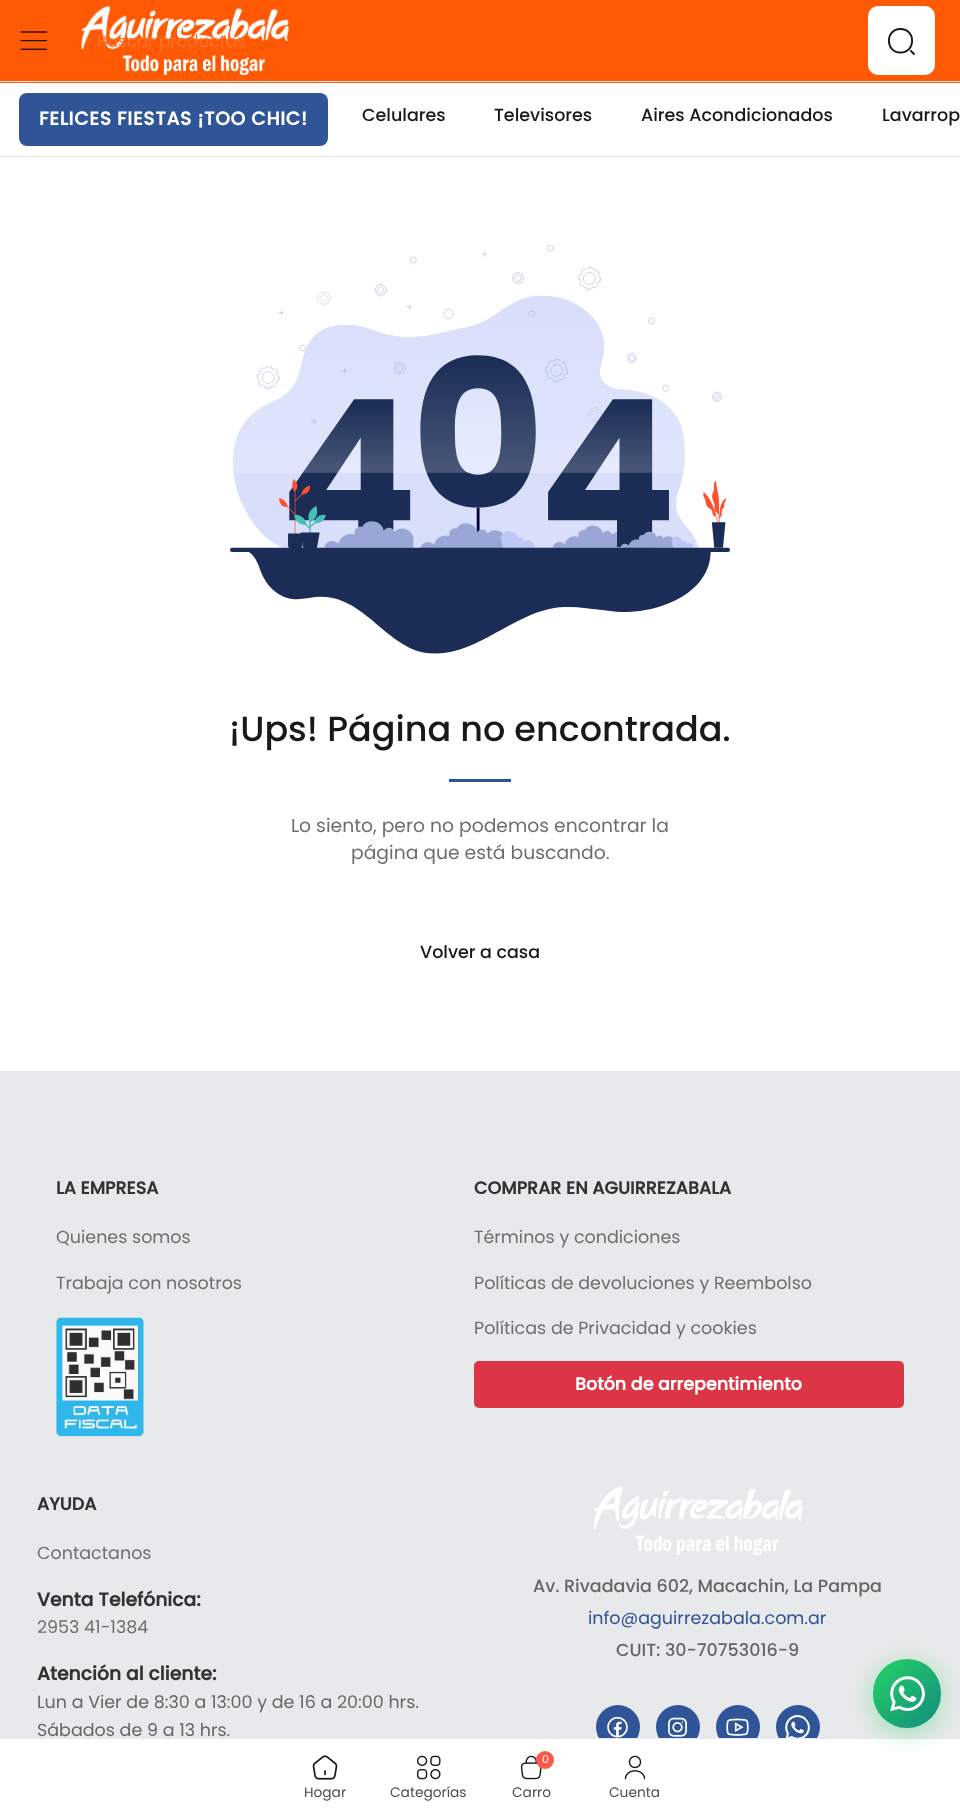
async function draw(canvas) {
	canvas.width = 960;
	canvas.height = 1815;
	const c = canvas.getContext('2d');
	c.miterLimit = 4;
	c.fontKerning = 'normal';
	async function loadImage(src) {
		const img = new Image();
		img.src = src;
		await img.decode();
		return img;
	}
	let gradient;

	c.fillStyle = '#fff';
	c.fillRect(0, 0, 960, 1815);
	c.fillStyle = '#ff5904';
	c.fillRect(0, 0, 960, 83);
	c.fillStyle = '#e8e7eb';
	c.fillRect(0, 81, 960, 1);
	c.drawImage(await loadImage('img1.png'), 20, 31, 27, 19);
	c.drawImage(await loadImage('img2.png'), 81, 6, 208, 69);
	c.fillStyle = '#fff';
	c.beginPath();
	c.roundRect(868, 6, 67, 69, 10);
	c.fill();
	c.font = '16.75px Poppins';
	c.fillStyle = '#ff722a';
	c.fillText('Buscar productos', 97, 47);
	c.beginPath();
	c.moveTo(900.5, 52.5);
	c.bezierCurveTo(916, 52.5, 916, 29, 900.5, 29);
	c.bezierCurveTo(885, 29, 885, 52.5, 900.5, 52.5);
	c.closePath();
	c.moveTo(914, 54);
	c.lineTo(911, 51);
	c.strokeStyle = '#191919';
	c.lineWidth = 1.9;
	c.lineCap = 'round';
	c.lineJoin = 'round';
	c.stroke();
	c.fillStyle = '#e8e7eb';
	c.fillRect(0, 156, 960, 1);
	c.fillStyle = '#2f5498';
	c.beginPath();
	c.roundRect(19, 93, 309, 53, 8);
	c.fill();
	c.letterSpacing = '0.6px';
	c.font = 'bold 18.75px Poppins';
	c.fillStyle = '#fff';
	c.fillText('FELICES FIESTAS ¡TOO CHIC!', 39, 125);
	c.letterSpacing = '0px';
	c.font = '500 17.5px Poppins';
	c.fillStyle = '#191919';
	for (const [text, x, y] of [
		['Celulares', 362, 121],
		['Televisores', 494, 121],
		['Aires Acondicionados', 641, 121],
		['Lavarrop', 882, 121],
	]) {
		c.fillText(text, x, y);
	}
	c.drawImage(await loadImage('img3.png'), 230, 245, 500, 409);
	c.font = '500 35px Poppins';
	c.fillText('¡Ups! Página no encontrada.', 229, 741);
	c.fillStyle = '#2f5498';
	c.fillRect(449, 779, 62, 3);
	c.font = '18.75px Poppins';
	c.fillStyle = '#6e6e6e';
	c.fillText('Lo siento, pero no podemos encontrar la', 291, 832);
	c.fillText('página que está buscando.', 351, 859);
	c.font = '500 17.5px Poppins';
	c.fillStyle = '#191919';
	c.fillText('Volver a casa', 420, 958);
	c.fillStyle = '#e8e9ea';
	c.fillRect(0, 1071, 960, 667);
	c.font = 'bold 17.5px Poppins';
	c.fillStyle = '#333';
	c.fillText('LA EMPRESA', 56, 1194);
	c.font = '17.5px Poppins';
	c.fillStyle = '#6e6e6e';
	c.fillText('Quienes somos', 56, 1243);
	c.fillText('Trabaja con nosotros', 56, 1289);
	c.drawImage(await loadImage('img4.png'), 56, 1317, 88, 120);
	c.font = 'bold 17.5px Poppins';
	c.fillStyle = '#333';
	c.fillText('COMPRAR EN AGUIRREZABALA', 474, 1194);
	c.font = '17.5px Poppins';
	c.fillStyle = '#6e6e6e';
	for (const [text, x, y] of [
		['Términos y condiciones', 474, 1243],
		['Políticas de devoluciones y Reembolso', 474, 1289],
		['Políticas de Privacidad y cookies', 474, 1334],
	]) {
		c.fillText(text, x, y);
	}
	c.fillStyle = '#dc3545';
	c.beginPath();
	c.roundRect(474, 1361, 430, 47, 5);
	c.fill();
	c.font = 'bold 17.5px Poppins';
	c.fillStyle = '#fff';
	c.fillText('Botón de arrepentimiento', 575, 1390);
	c.fillStyle = '#333';
	c.fillText('AYUDA', 37, 1510);
	c.font = '17.5px Poppins';
	c.fillStyle = '#6e6e6e';
	c.fillText('Contactanos', 37, 1559);
	c.font = 'bold 18.75px Poppins';
	c.fillStyle = '#333';
	c.fillText('Venta Telefónica:', 37, 1606);
	c.font = '17.5px Poppins';
	c.fillStyle = '#6e6e6e';
	c.fillText('2953 41-1384', 37, 1633);
	c.font = 'bold 18.75px Poppins';
	c.fillStyle = '#333';
	c.fillText('Atención al cliente:', 37, 1680);
	c.font = '17.5px Poppins';
	c.fillStyle = '#666';
	c.fillText('Lun a Vier de 8:30 a 13:00 y de 16 a 20:00 hrs.', 37, 1708);
	c.fillText('Sábados de 9 a 13 hrs.', 37, 1736);
	c.drawImage(await loadImage('img5.png'), 593, 1486, 210, 69);
	c.font = '500 17.5px Poppins';
	c.fillText('Av. Rivadavia 602, Macachin, La Pampa', 533, 1592);
	c.font = '17.5px Poppins';
	c.fillStyle = '#2f5498';
	c.fillText('info@aguirrezabala.com.ar', 588, 1624);
	c.font = '500 17.5px Poppins';
	c.fillStyle = '#666';
	c.fillText('CUIT: 30-70753016-9', 616, 1656);
	c.fillStyle = '#2f5498';
	c.beginPath();
	c.arc(618, 1727, 22, 0, 2 * Math.PI);
	c.fill();
	c.drawImage(await loadImage('img6.png'), 607, 1716, 21, 22);
	c.beginPath();
	c.arc(678, 1727, 22, 0, 2 * Math.PI);
	c.fill();
	c.drawImage(await loadImage('img7.png'), 668, 1717, 19, 20);
	c.beginPath();
	c.arc(738, 1727, 22, 0, 2 * Math.PI);
	c.fill();
	c.drawImage(await loadImage('img8.png'), 726, 1718, 23, 18);
	c.beginPath();
	c.arc(798, 1727, 22, 0, 2 * Math.PI);
	c.fill();
	c.drawImage(await loadImage('img9.png'), 785, 1715, 25, 23);
	c.fillStyle = '#e2e8f0';
	c.fillRect(0, 1738, 960, 1);
	c.fillStyle = '#25d36666';
	c.filter = 'blur(12.5px)';
	c.beginPath();
	c.roundRect(873, 1664, 68, 69, 34);
	c.fill();
	c.filter = 'none';
	gradient = c.createLinearGradient(873, 1659, 941, 1728);
	gradient.addColorStop(0, '#25d366');
	gradient.addColorStop(1, '#128c7e');
	c.fillStyle = gradient;
	c.beginPath();
	c.roundRect(873, 1659, 68, 69, 34);
	c.fill();
	c.drawImage(await loadImage('img10.png'), 890, 1676, 35, 35);
	c.fillStyle = '#fff';
	c.fillRect(599, 1739, 218, 10);
	c.drawImage(await loadImage('img11.png'), 312, 1755, 26, 25);
	c.font = '13.75px Poppins';
	c.fillStyle = '#4c4c4c';
	c.fillText('Hogar', 304, 1797);
	c.drawImage(await loadImage('img12.png'), 417, 1755, 24, 25);
	c.fillText('Categorías', 390, 1797);
	c.drawImage(await loadImage('img13.png'), 520, 1755, 22, 25);
	c.fillStyle = '#ff5748';
	c.beginPath();
	c.arc(545, 1760, 9, 0, 2 * Math.PI);
	c.fill();
	c.font = '11px Poppins';
	c.fillStyle = '#fff';
	c.fillText('0', 542, 1763);
	c.font = '13.75px Poppins';
	c.fillStyle = '#4c4c4c';
	c.fillText('Carro', 512, 1797);
	c.drawImage(await loadImage('img14.png'), 624, 1755, 22, 25);
	c.fillText('Cuenta', 609, 1797);
}

draw(document.querySelector('canvas'));
